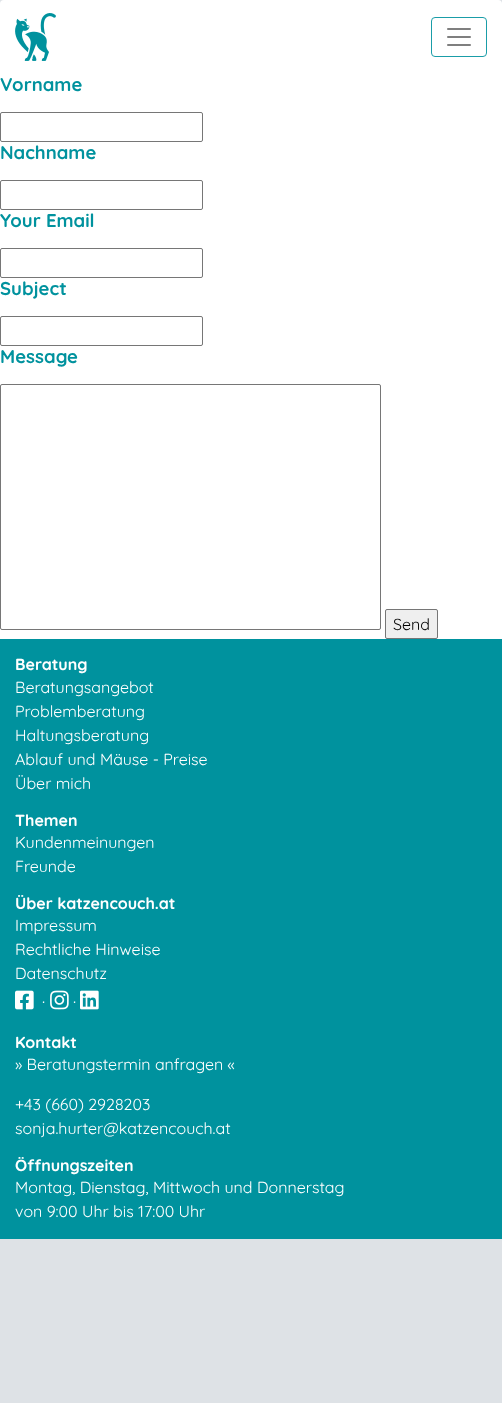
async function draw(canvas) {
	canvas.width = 502;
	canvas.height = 1403;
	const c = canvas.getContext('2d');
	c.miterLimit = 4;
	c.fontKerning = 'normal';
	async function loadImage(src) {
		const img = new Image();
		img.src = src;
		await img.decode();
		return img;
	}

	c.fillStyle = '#dee2e6';
	c.fillRect(0, 0, 502, 1403);
	c.fillStyle = '#fff';
	c.beginPath();
	c.roundRect(0, 0, 502, 1239, [4, 4, 0, 0]);
	c.fill();
	c.drawImage(await loadImage('img1.png'), 15, 13, 41, 48);
	c.beginPath();
	c.roundRect(431.5, 17.5, 55, 39, 3.5);
	c.strokeStyle = '#1a9da8';
	c.stroke();
	c.drawImage(await loadImage('img2.png'), 447, 28, 24, 18);
	c.font = 'bold 18.5px Quicksand';
	c.fillStyle = '#00929e';
	c.fillText('Vorname', 0, 91);
	c.beginPath();
	c.roundRect(0.5, 112.5, 202, 29, 1.5);
	c.strokeStyle = '#767676';
	c.stroke();
	c.fillText('Nachname', 0, 159);
	c.beginPath();
	c.roundRect(0.5, 180.5, 202, 29, 1.5);
	c.stroke();
	c.fillText('Your Email', 0, 227);
	c.beginPath();
	c.roundRect(0.5, 248.5, 202, 29, 1.5);
	c.stroke();
	c.fillText('Subject', 0, 295);
	c.beginPath();
	c.roundRect(0.5, 316.5, 202, 29, 1.5);
	c.stroke();
	c.fillText('Message', 0, 363);
	c.beginPath();
	c.roundRect(0.5, 384.5, 380, 245, 1.5);
	c.stroke();
	c.fillStyle = '#efefef';
	c.beginPath();
	c.roundRect(385.5, 609.5, 52, 29, 1.5);
	c.fill();
	c.stroke();
	c.font = '16px Quicksand';
	c.fillStyle = '#000';
	c.fillText('Send', 393, 630);
	c.fillStyle = '#00929e';
	c.fillRect(0, 639, 502, 600);
	c.font = 'bold 16px Quicksand';
	c.fillStyle = '#fff';
	c.fillText('Beratung', 15, 670);
	c.font = '16px Quicksand';
	for (const [text, x, y] of [
		['Beratungsangebot', 15, 693],
		['Problemberatung', 15, 717],
		['Haltungsberatung', 15, 741],
		['Ablauf und Mäuse - Preise', 15, 765],
		['Über mich', 15, 789],
	]) {
		c.fillText(text, x, y);
	}
	c.font = 'bold 16px Quicksand';
	c.fillText('Themen', 15, 826);
	c.font = '16px Quicksand';
	c.fillText('Kundenmeinungen', 15, 848);
	c.fillText('Freunde', 15, 872);
	c.font = 'bold 16px Quicksand';
	c.fillText('Über katzencouch.at', 15, 909);
	c.font = '16px Quicksand';
	for (const [text, x, y] of [
		['Impressum', 15, 931],
		['Rechtliche Hinweise', 15, 955],
		['Datenschutz', 15, 979],
	]) {
		c.fillText(text, x, y);
	}
	c.drawImage(await loadImage('img3.png'), 15, 990, 19, 20);
	c.fillText('·', 42, 1007);
	c.drawImage(await loadImage('img4.png'), 50, 990, 19, 20);
	c.fillText('·', 73, 1007);
	c.drawImage(await loadImage('img5.png'), 80, 990, 19, 20);
	c.font = 'bold 16px Quicksand';
	c.fillText('Kontakt', 15, 1048);
	c.font = '16px Quicksand';
	for (const [text, x, y] of [
		['» Beratungstermin anfragen «', 15, 1070],
		['+43 (660) 2928203', 15, 1110],
		['sonja.hurter@katzencouch.at', 15, 1134],
	]) {
		c.fillText(text, x, y);
	}
	c.font = 'bold 16px Quicksand';
	c.fillText('Öffnungszeiten', 15, 1171);
	c.font = '16px Quicksand';
	c.fillText('Montag, Dienstag, Mittwoch und Donnerstag', 15, 1193);
	c.fillText('von 9:00 Uhr bis 17:00 Uhr', 15, 1217);
}

draw(document.querySelector('canvas'));
